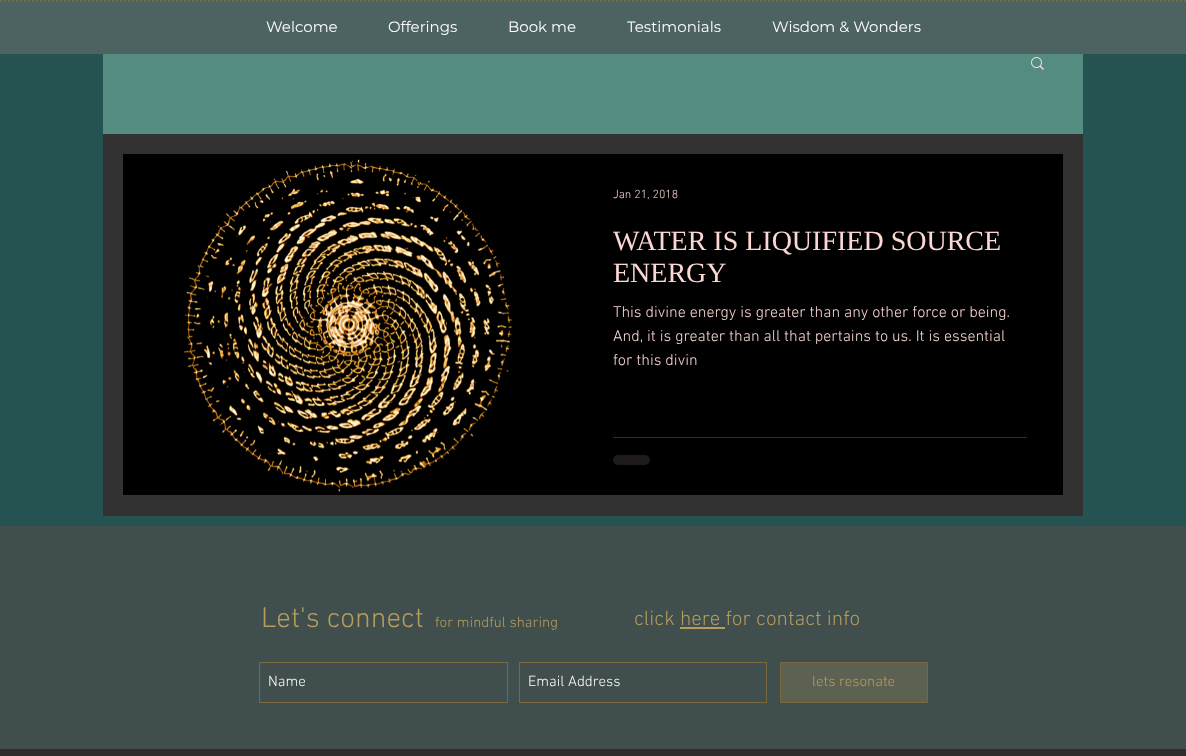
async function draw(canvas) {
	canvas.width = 1186;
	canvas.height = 756;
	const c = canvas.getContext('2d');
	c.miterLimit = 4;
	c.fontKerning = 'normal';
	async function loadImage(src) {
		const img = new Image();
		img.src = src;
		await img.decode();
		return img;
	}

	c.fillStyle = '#2f2e2e';
	c.fillRect(0, 0, 1186, 756);
	c.fillStyle = '#4d6362';
	c.fillRect(0, 0, 1186, 54);
	c.beginPath();
	c.moveTo(0, 1);
	c.lineTo(1186, 1);
	c.strokeStyle = '#79693c';
	c.lineWidth = 2;
	c.setLineDash([2, 2]);
	c.stroke();
	c.font = '15px Montserrat';
	c.fillStyle = '#fefdfd';
	for (const [text, x, y] of [
		['Welcome', 266, 32],
		['Offerings', 388, 32],
		['Book me', 508, 32],
		['Testimonials', 627, 32],
		['Wisdom & Wonders', 772, 32],
	]) {
		c.fillText(text, x, y);
	}
	for (const [x, y, w, h, color] of [
		[0, 54, 1186, 472, '#245352'],
		[103, 134, 980, 382, '#323232'],
		[103, 54, 980, 80, '#548c82'],
	]) {
		c.fillStyle = color;
		c.fillRect(x, y, w, h);
	}
	c.drawImage(await loadImage('img1.png'), 1031, 57, 13, 13);
	c.drawImage(await loadImage('img2.png'), 123, 154, 454, 340);
	c.fillStyle = '#010101';
	c.fillRect(123, 494, 454, 1);
	c.fillStyle = '#000';
	c.fillRect(577, 154, 486, 341);
	c.font = '300 12px "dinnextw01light"';
	c.fillStyle = '#fbd8d4';
	c.fillText('Jan 21, 2018', 613, 198);
	c.font = '28px Liberation Serif';
	c.fillText('WATER IS LIQUIFIED SOURCE', 613, 250);
	c.fillText('ENERGY', 613, 282);
	c.font = '300 16px "dinnextw01light"';
	for (const [text, x, y] of [
		['This divine energy is greater than any other force or being.', 613, 317],
		['And, it is greater than all that pertains to us. It is essential', 613, 341],
		['for this divin', 613, 365],
	]) {
		c.fillText(text, x, y);
	}
	c.fillStyle = '#322b2a';
	c.fillRect(613, 437, 414, 1);
	c.fillStyle = '#1e1a19';
	c.beginPath();
	c.roundRect(613, 455, 37, 10, 5);
	c.fill();
	c.fillStyle = '#414e4e';
	c.fillRect(0, 526, 1186, 223);
	c.font = '300 29px "dinnextw01light"';
	c.fillStyle = '#b59d5b';
	c.fillText('Let\'s connect', 261, 627);
	c.font = '300 15px "dinnextw01light"';
	c.fillText('for mindful sharing', 435, 627);
	c.font = '300 21px "dinnextw01light"';
	c.fillText('click here for contact info', 634, 625);
	c.fillRect(680, 627, 45, 2);
	c.lineWidth = 1;
	c.setLineDash([]);
	c.strokeRect(259.5, 662.5, 248, 40);
	c.font = '300 15px "dinnextw01light"';
	c.fillStyle = '#fefdfd';
	c.fillText('Name', 268, 686);
	c.strokeRect(519.5, 662.5, 247, 40);
	c.fillText('Email Address', 528, 686);
	c.fillStyle = '#5d6151';
	c.beginPath();
	c.rect(780.5, 662.5, 147, 40);
	c.fill();
	c.stroke();
	c.fillStyle = '#b59d5b';
	c.fillText('lets resonate', 812, 686);
}

draw(document.querySelector('canvas'));
